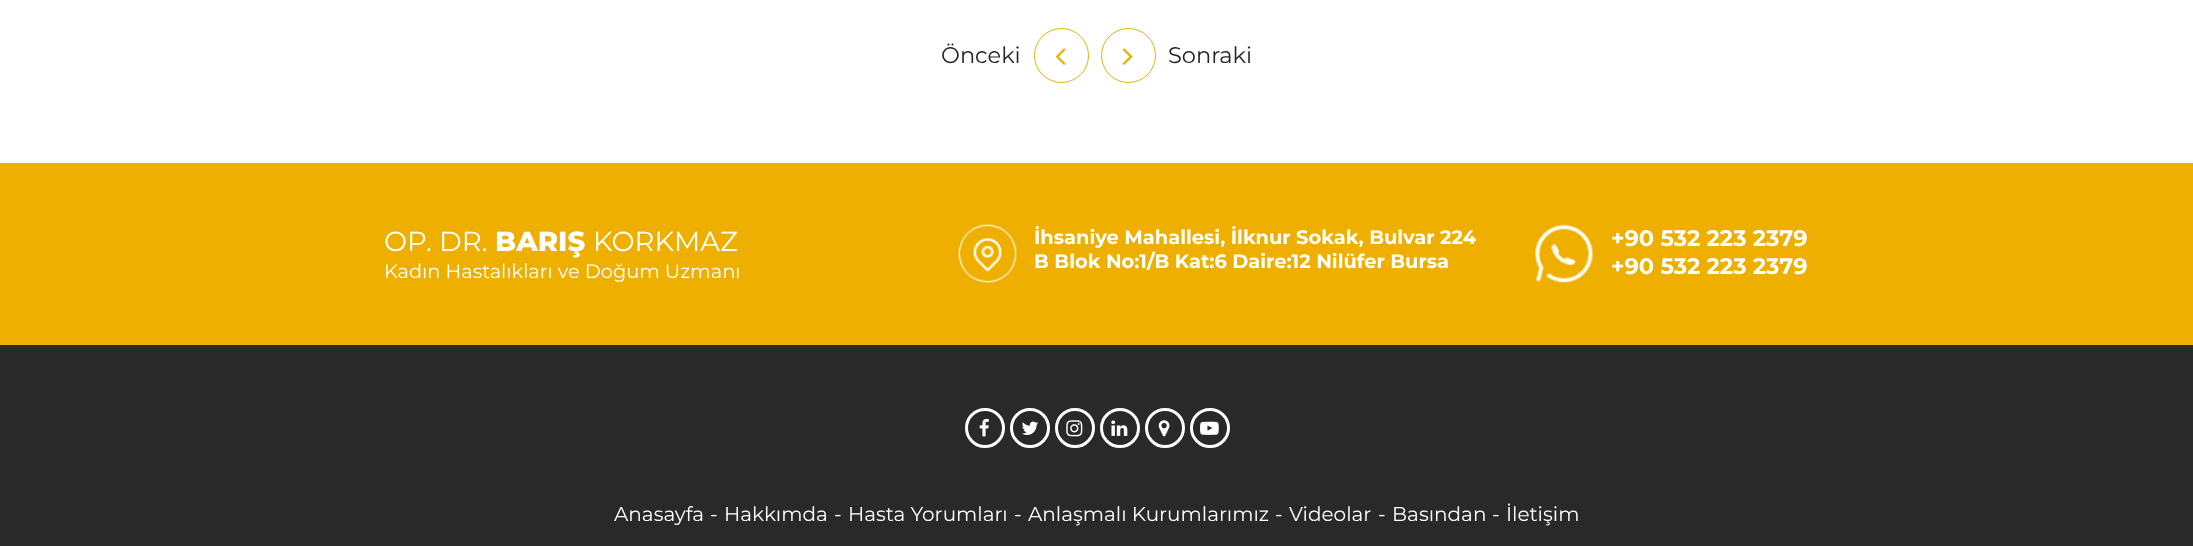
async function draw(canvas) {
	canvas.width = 2193;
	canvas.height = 546;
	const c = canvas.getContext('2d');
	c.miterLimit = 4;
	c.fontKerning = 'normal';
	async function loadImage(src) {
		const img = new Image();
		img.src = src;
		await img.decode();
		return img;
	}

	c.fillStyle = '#fff';
	c.fillRect(0, 0, 2193, 546);
	c.font = '22.5px Montserrat';
	c.fillStyle = '#232323';
	c.fillText('Önceki', 941, 63);
	c.beginPath();
	c.arc(1061.5, 55.5, 27, 0, 2 * Math.PI);
	c.strokeStyle = '#efaf00';
	c.stroke();
	c.drawImage(await loadImage('img1.png'), 1055, 48, 11, 17);
	c.beginPath();
	c.arc(1128.5, 55.5, 27, 0, 2 * Math.PI);
	c.stroke();
	c.drawImage(await loadImage('img2.png'), 1122, 48, 11, 17);
	c.fillText('Sonraki', 1168, 63);
	c.fillStyle = '#292929';
	c.fillRect(0, 345, 2193, 201);
	c.fillStyle = '#efaf00';
	c.fillRect(0, 163, 2193, 182);
	c.font = '27.5px Montserrat';
	c.fillStyle = '#fff';
	c.fillText('OP. DR.', 384, 251);
	c.font = '800 27.5px Montserrat';
	c.fillText('BARIŞ', 495, 251);
	c.font = '27.5px Montserrat';
	c.fillText('KORKMAZ', 593, 251);
	c.font = '19.4px Montserrat';
	c.fillText('Kadın Hastalıkları ve Doğum Uzmanı', 384, 278);
	c.drawImage(await loadImage('img3.png'), 958, 224, 59, 59);
	c.font = 'bold 19.4px Montserrat';
	c.fillText('İhsaniye Mahallesi, İlknur Sokak, Bulvar 224', 1034, 244);
	c.fillText('B Blok No:1/B Kat:6 Daire:12 Nilüfer Bursa', 1034, 268);
	c.drawImage(await loadImage('img4.png'), 1535, 224, 58, 59);
	c.font = 'bold 22.5px Montserrat';
	c.fillText('+90 532 223 2379', 1611, 246);
	c.fillText('+90 532 223 2379', 1611, 274);
	c.beginPath();
	c.arc(985, 428, 18.5, 0, 2 * Math.PI);
	c.strokeStyle = '#fff';
	c.lineWidth = 3;
	c.stroke();
	c.drawImage(await loadImage('img5.png'), 979, 418, 10, 19);
	c.beginPath();
	c.arc(1030, 428, 18.5, 0, 2 * Math.PI);
	c.stroke();
	c.drawImage(await loadImage('img6.png'), 1021, 421, 17, 14);
	c.beginPath();
	c.arc(1075, 428, 18.5, 0, 2 * Math.PI);
	c.stroke();
	c.drawImage(await loadImage('img7.png'), 1066, 420, 17, 17);
	c.beginPath();
	c.arc(1120, 428, 18.5, 0, 2 * Math.PI);
	c.stroke();
	c.drawImage(await loadImage('img8.png'), 1111, 420, 17, 16);
	c.beginPath();
	c.arc(1165, 428, 18.5, 0, 2 * Math.PI);
	c.stroke();
	c.drawImage(await loadImage('img9.png'), 1158, 420, 12, 17);
	c.beginPath();
	c.arc(1210, 428, 18.5, 0, 2 * Math.PI);
	c.stroke();
	c.drawImage(await loadImage('img10.png'), 1200, 421, 19, 14);
	c.font = '20px Montserrat';
	for (const [text, x, y] of [
		['Anasayfa', 614, 521],
		['-', 710, 521],
		['Hakkımda', 724, 521],
		['-', 834, 521],
		['Hasta Yorumları', 848, 521],
		['-', 1014, 521],
		['Anlaşmalı Kurumlarımız', 1028, 521],
		['-', 1275, 521],
		['Videolar', 1289, 521],
		['-', 1378, 521],
		['Basından', 1392, 521],
		['-', 1492, 521],
		['İletişim', 1506, 521],
	]) {
		c.fillText(text, x, y);
	}
}

draw(document.querySelector('canvas'));
